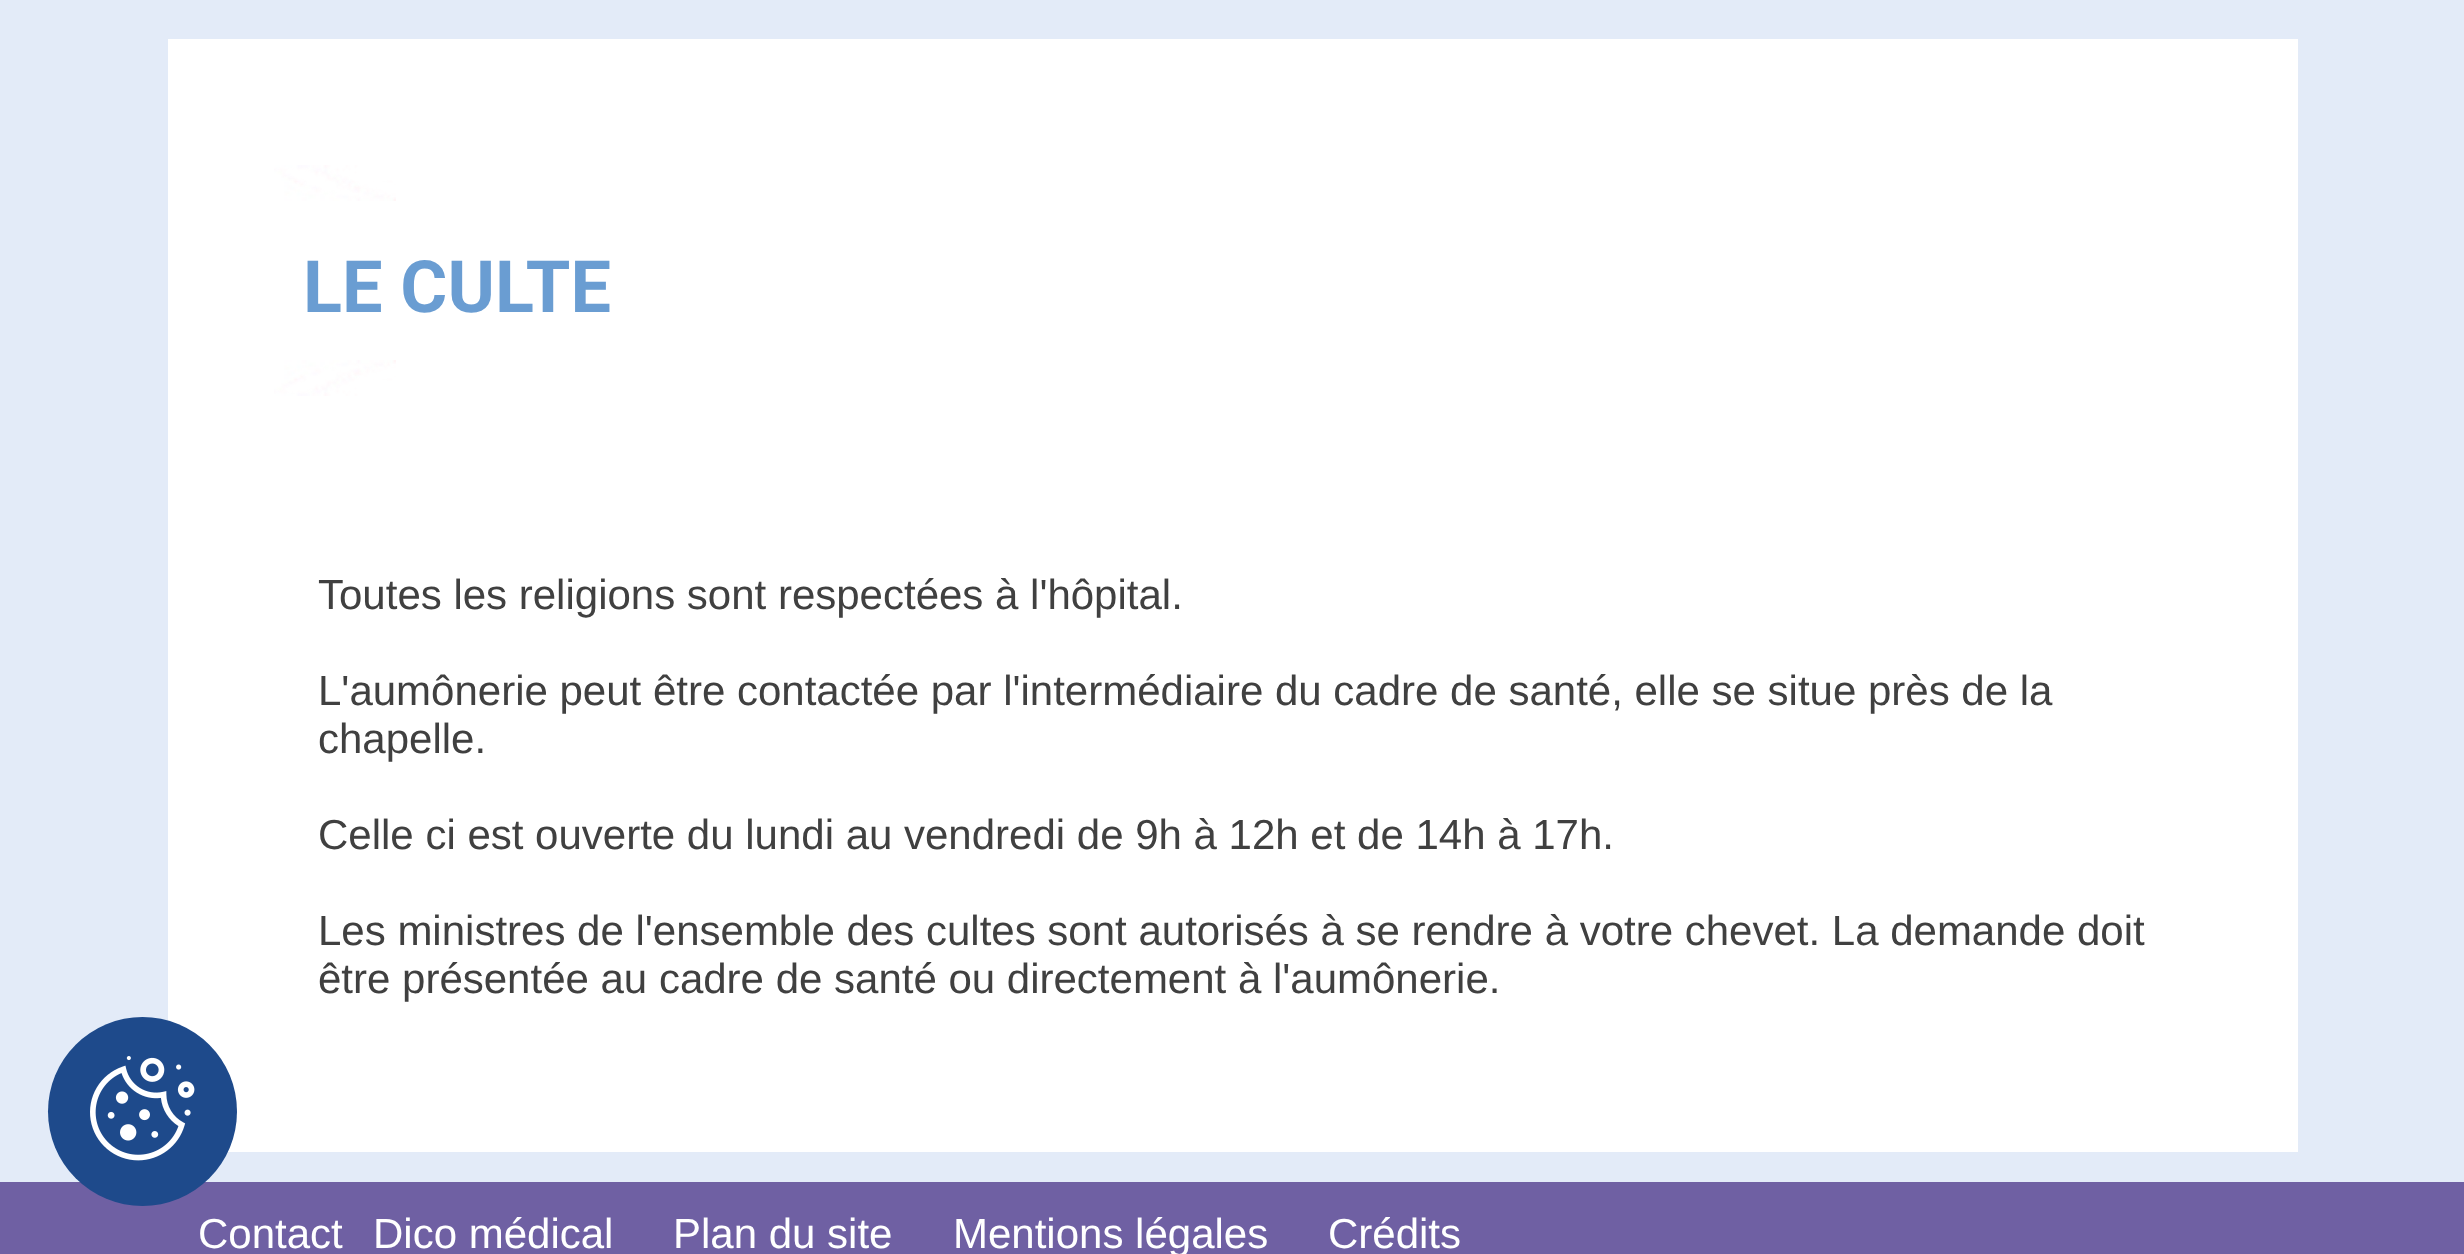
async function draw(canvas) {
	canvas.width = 2464;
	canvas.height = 1254;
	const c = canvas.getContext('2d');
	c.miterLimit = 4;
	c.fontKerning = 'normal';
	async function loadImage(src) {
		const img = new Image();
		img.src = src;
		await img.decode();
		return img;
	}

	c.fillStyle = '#e3ebf8';
	c.fillRect(0, 0, 2464, 1254);
	c.fillStyle = '#fff';
	c.fillRect(168, 39, 2130, 1113);
	c.drawImage(await loadImage('img1.png'), 274, 165, 122, 36);
	c.font = 'bold 72px Roboto';
	c.fillStyle = '#6a9dd2';
	c.fillText('LE CULTE', 303, 312);
	c.drawImage(await loadImage('img2.png'), 274, 360, 122, 36);
	c.font = '42px Liberation Sans';
	c.fillStyle = '#404040';
	for (const [text, x, y] of [
		['Toutes les religions sont respectées à l\'hôpital.', 318, 609],
		['L\'aumônerie peut être contactée par l\'intermédiaire du cadre de santé, elle se situe près de la', 318, 705],
		['chapelle.', 318, 753],
		['Celle ci est ouverte du lundi au vendredi de 9h à 12h et de 14h à 17h.', 318, 849],
		['Les ministres de l\'ensemble des cultes sont autorisés à se rendre à votre chevet. La demande doit', 318, 945],
		['être présentée au cadre de santé ou directement à l\'aumônerie.', 318, 993],
	]) {
		c.fillText(text, x, y);
	}
	c.fillStyle = '#6f60a3';
	c.fillRect(0, 1182, 2464, 72);
	c.fillStyle = '#1e4a8b';
	c.beginPath();
	c.arc(142.5, 1111.5, 94.5, 0, 2 * Math.PI);
	c.fill();
	c.drawImage(await loadImage('img3.png'), 90, 1056, 105, 105);
	c.fillStyle = '#fff';
	for (const [text, x, y] of [
		['Contact', 198, 1248],
		['Dico médical', 373, 1248],
		['Plan du site', 673, 1248],
		['Mentions légales', 953, 1248],
		['Crédits', 1328, 1248],
	]) {
		c.fillText(text, x, y);
	}
}

draw(document.querySelector('canvas'));
